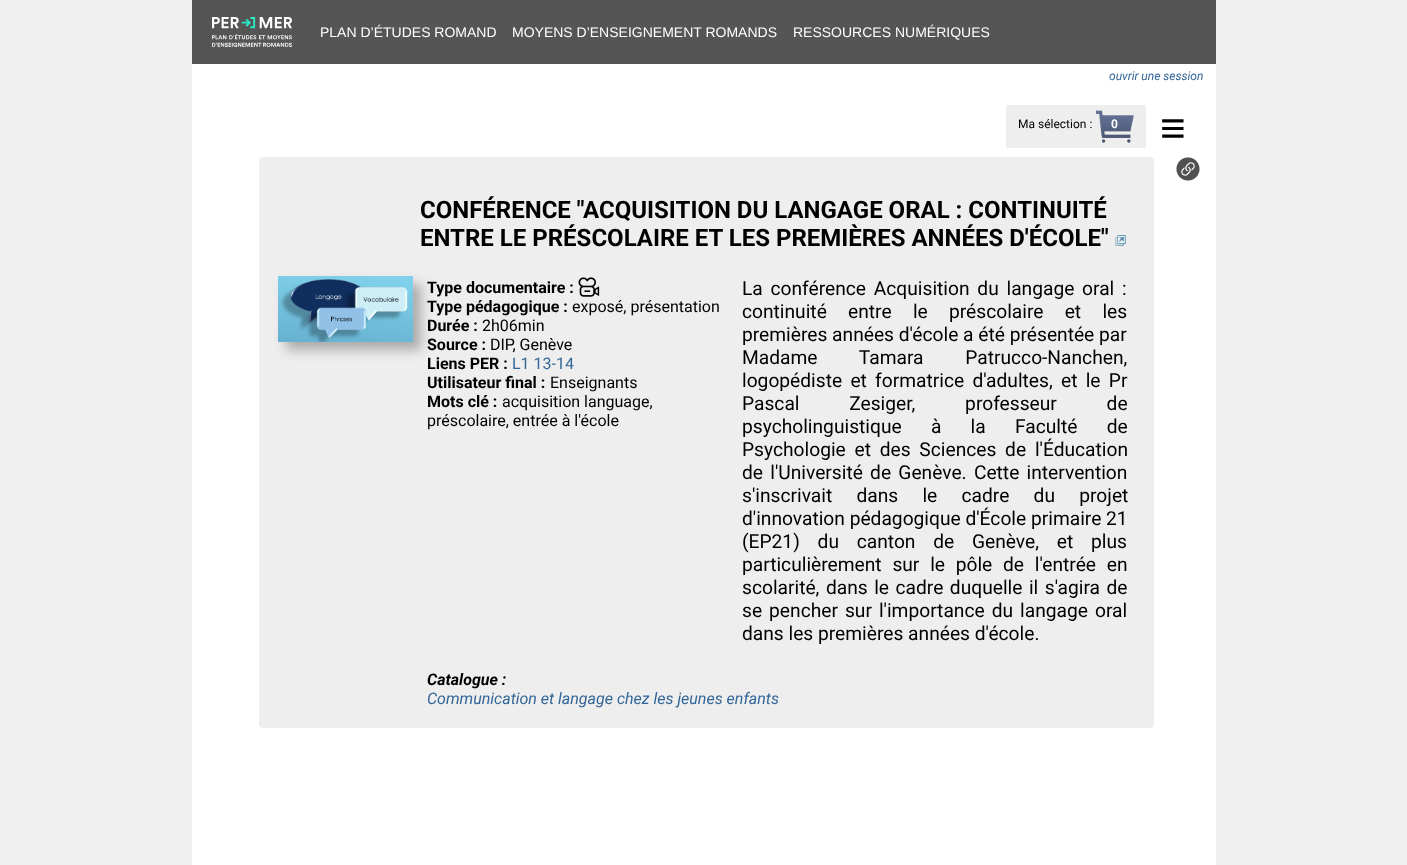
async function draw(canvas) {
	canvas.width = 1407;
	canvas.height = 865;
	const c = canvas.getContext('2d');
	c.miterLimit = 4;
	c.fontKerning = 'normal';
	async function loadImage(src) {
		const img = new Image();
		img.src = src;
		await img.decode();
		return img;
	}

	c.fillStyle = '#efefef';
	c.fillRect(0, 0, 1407, 865);
	c.fillStyle = '#fff';
	c.fillRect(192, 64, 1024, 801);
	c.fillStyle = '#555';
	c.fillRect(192, 0, 1024, 64);
	c.drawImage(await loadImage('img1.png'), 212, 17, 80, 30);
	c.font = '14px Liberation Sans';
	c.fillStyle = '#fff';
	for (const [text, x, y] of [
		['PLAN D’ÉTUDES ROMAND', 320, 37],
		['MOYENS D’ENSEIGNEMENT ROMANDS', 512, 37],
		['RESSOURCES NUMÉRIQUES', 793, 37],
	]) {
		c.fillText(text, x, y);
	}
	c.font = 'italic 12px Roboto';
	c.fillStyle = '#369';
	c.fillText('ouvrir une session', 1109, 80);
	c.fillStyle = '#eee';
	c.fillRect(1006, 105, 140, 43);
	c.font = '12px Roboto';
	c.fillStyle = '#000';
	c.fillText('Ma sélection :', 1018, 128);
	c.drawImage(await loadImage('img2.png'), 1096, 110, 38, 33);
	c.font = 'bold 12px Roboto';
	c.fillStyle = '#fff';
	c.fillText('0', 1111, 128);
	c.font = '44px Liberation Sans';
	c.fillStyle = '#000';
	c.fillText('≡', 1160, 143);
	c.drawImage(await loadImage('img3.png'), 1176, 157, 24, 24);
	c.fillStyle = '#eee';
	c.beginPath();
	c.roundRect(259, 157, 895, 571, 4);
	c.fill();
	c.font = 'bold 24px Roboto';
	c.fillStyle = '#000';
	c.fillText('CONFÉRENCE "ACQUISITION DU LANGAGE ORAL : CONTINUITÉ', 420, 218);
	c.fillText('ENTRE LE PRÉSCOLAIRE ET LES PREMIÈRES ANNÉES D\'ÉCOLE"', 420, 246);
	c.drawImage(await loadImage('img4.png'), 1115, 235, 11, 11);
	c.fillStyle = '#aaa';
	c.filter = 'blur(6px)';
	c.beginPath();
	c.rect(286, 284, 135, 66);
	c.fill();
	c.filter = 'none';
	c.drawImage(await loadImage('img5.png'), 278, 276, 135, 66);
	c.font = 'bold 16px Roboto';
	c.fillStyle = '#000';
	c.fillText('Type documentaire :', 427, 293);
	c.drawImage(await loadImage('img6.png'), 578, 277, 22, 20);
	c.fillText('Type pédagogique :', 427, 312);
	c.font = '16px Roboto';
	c.fillText('exposé, présentation', 572, 312);
	c.font = 'bold 16px Roboto';
	c.fillText('Durée :', 427, 331);
	c.font = '16px Roboto';
	c.fillText('2h06min', 482, 331);
	c.font = 'bold 16px Roboto';
	c.fillText('Source :', 427, 350);
	c.font = '16px Roboto';
	c.fillText('DIP, Genève', 490, 350);
	c.font = 'bold 16px Roboto';
	c.fillText('Liens PER :', 427, 369);
	c.font = '16px Roboto';
	c.fillStyle = '#369';
	c.fillText('L1 13-14', 512, 369);
	c.font = 'bold 16px Roboto';
	c.fillStyle = '#000';
	c.fillText('Utilisateur final :', 427, 388);
	c.font = '16px Roboto';
	c.fillText('Enseignants', 550, 388);
	c.font = 'bold 16px Roboto';
	c.fillText('Mots clé :', 427, 407);
	c.font = '16px Roboto';
	c.fillText('acquisition language,', 502, 407);
	c.fillText('préscolaire, entrée à l\'école', 427, 426);
	c.wordSpacing = '3px';
	c.font = '19.2px Roboto';
	c.fillText('La conférence Acquisition du langage oral :', 742, 295);
	c.wordSpacing = '16.5px';
	c.fillText('continuité entre le préscolaire et les', 742, 318);
	c.wordSpacing = '0px';
	c.fillText('premières années d\'école a été présentée par', 742, 341);
	c.wordSpacing = '37px';
	c.fillText('Madame Tamara Patrucco-Nanchen,', 742, 364);
	c.wordSpacing = '3.5px';
	c.fillText('logopédiste et formatrice d\'adultes, et le Pr', 742, 387);
	c.wordSpacing = '45px';
	c.fillText('Pascal Zesiger, professeur de', 742, 410);
	c.wordSpacing = '24.5px';
	c.fillText('psycholinguistique à la Faculté de', 742, 433);
	c.wordSpacing = '4px';
	c.fillText('Psychologie et des Sciences de l\'Éducation', 742, 456);
	c.wordSpacing = '2.5px';
	c.fillText('de l\'Université de Genève. Cette intervention', 742, 479);
	c.wordSpacing = '19.5px';
	c.fillText('s\'inscrivait dans le cadre du projet', 742, 502);
	c.wordSpacing = '0px';
	c.fillText('d\'innovation pédagogique d\'École primaire 21', 742, 525);
	c.wordSpacing = '13px';
	c.fillText('(EP21) du canton de Genève, et plus', 742, 548);
	c.wordSpacing = '6px';
	c.fillText('particulièrement sur le pôle de l\'entrée en', 742, 571);
	c.wordSpacing = '1.75px';
	c.fillText('scolarité, dans le cadre duquelle il s\'agira de', 742, 594);
	c.wordSpacing = '2.25px';
	c.fillText('se pencher sur l\'importance du langage oral', 742, 617);
	c.wordSpacing = '0px';
	c.fillText('dans les premières années d\'école.', 742, 640);
	c.font = 'italic bold 16px Roboto';
	c.fillText('Catalogue :', 427, 685);
	c.font = 'italic 16px Roboto';
	c.fillStyle = '#369';
	c.fillText('Communication et langage chez les jeunes enfants', 427, 704);
}

draw(document.querySelector('canvas'));
